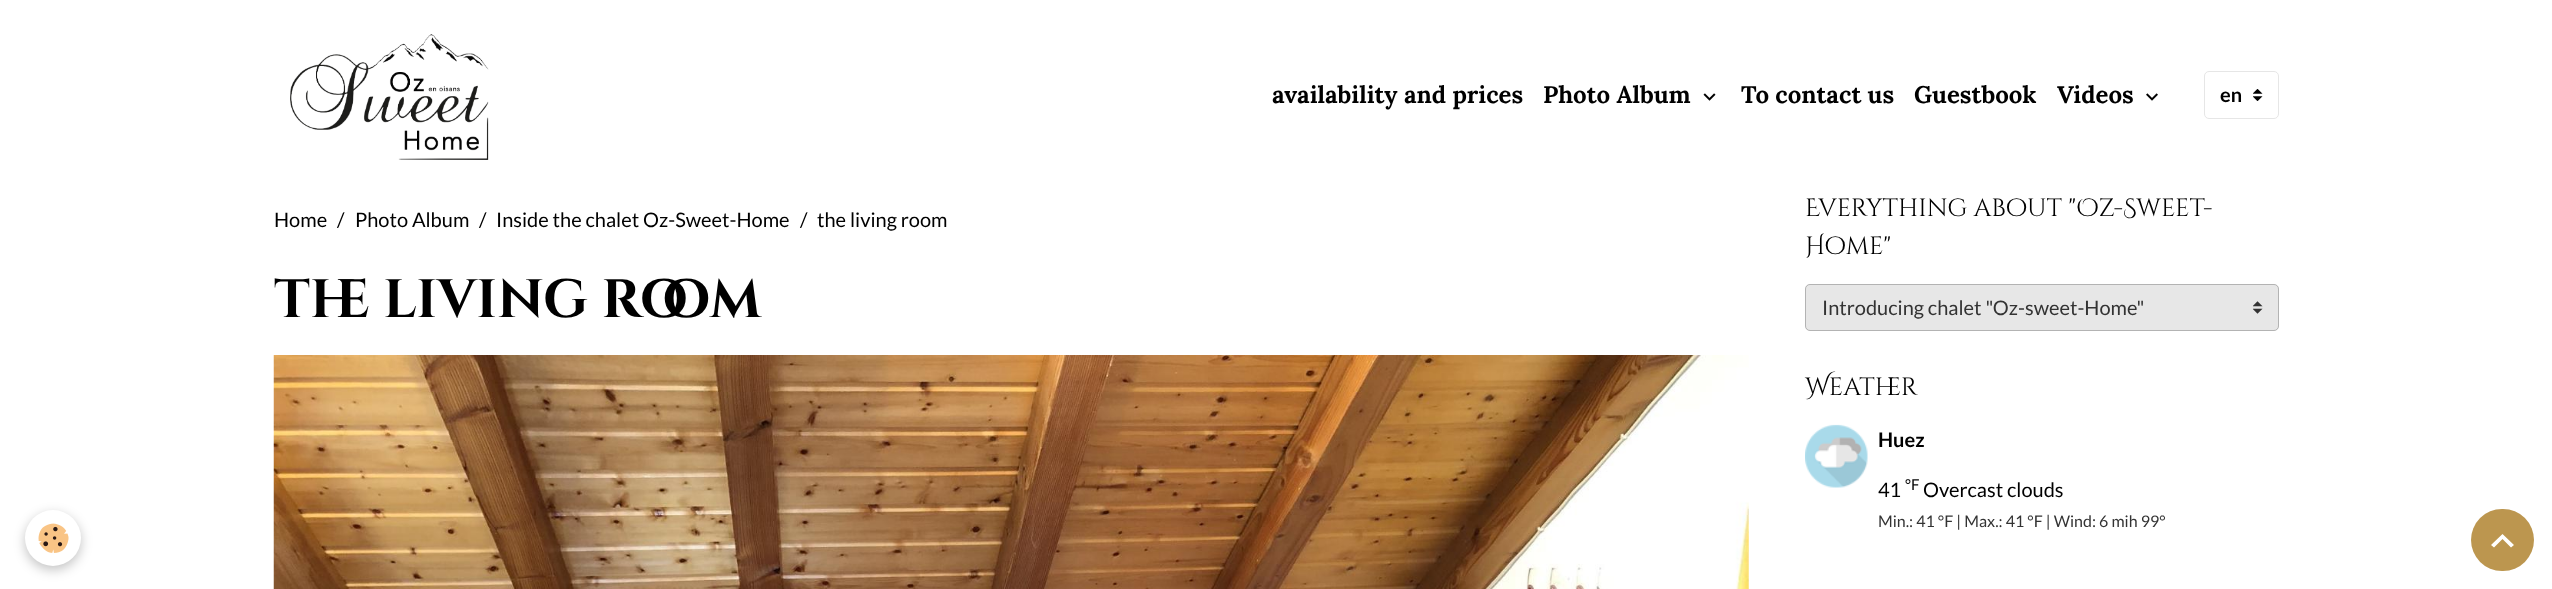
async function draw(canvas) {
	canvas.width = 2552;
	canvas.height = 589;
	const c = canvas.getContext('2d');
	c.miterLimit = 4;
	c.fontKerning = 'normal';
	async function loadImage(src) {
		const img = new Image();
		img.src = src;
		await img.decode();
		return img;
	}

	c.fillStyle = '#fff';
	c.fillRect(0, 0, 2552, 589);
	c.drawImage(await loadImage('img1.png'), 290, 34, 199, 126);
	c.font = 'bold 24px Lora';
	c.fillStyle = '#000';
	c.fillText('availability and prices', 1272, 103);
	c.fillText('Photo Album', 1543, 103);
	c.drawImage(await loadImage('img2.png'), 1703, 93, 13, 8);
	for (const [text, x, y] of [
		['To contact us', 1741, 103],
		['Guestbook', 1914, 103],
		['Videos', 2057, 103],
	]) {
		c.fillText(text, x, y);
	}
	c.drawImage(await loadImage('img3.png'), 2146, 93, 12, 8);
	c.drawImage(await loadImage('img4.png'), 2253, 89, 10, 12);
	c.beginPath();
	c.roundRect(2204.5, 71.5, 74, 47, 4.5);
	c.strokeStyle = '#e6e6e6';
	c.stroke();
	c.font = 'bold 20px Lato';
	c.fillText('en', 2220, 102);
	c.font = '20px Lato';
	for (const [text, x, y] of [
		['Home', 274, 227],
		['/', 337, 227],
		['Photo Album', 355, 227],
		['/', 479, 227],
		['Inside the chalet Oz-Sweet-Home', 496, 227],
		['/', 800, 227],
		['the living room', 817, 227],
	]) {
		c.fillText(text, x, y);
	}
	c.font = 'bold 54px Cinzel Decorative';
	c.fillText('the living room', 274, 317);
	c.drawImage(await loadImage('img5.png'), 273, 355, 1476, 234);
	c.font = '25px Cinzel Decorative';
	c.fillText('Everything about "Oz-Sweet-', 1805, 216);
	c.fillText('Home"', 1805, 254);
	c.fillStyle = '#e7e7e7';
	c.beginPath();
	c.roundRect(1805, 284, 474, 47, 5);
	c.fill();
	c.drawImage(await loadImage('img6.png'), 2253, 301, 10, 13);
	c.beginPath();
	c.roundRect(1805.5, 284.5, 473, 46, 4.5);
	c.strokeStyle = '#b3b3b3';
	c.stroke();
	c.font = '20px Lato';
	c.fillStyle = '#333';
	c.fillText('Introducing chalet "Oz-sweet-Home"', 1822, 315);
	c.font = '25px Cinzel Decorative';
	c.fillStyle = '#000';
	c.fillText('Weather', 1805, 395);
	c.drawImage(await loadImage('img7.png'), 1805, 424, 63, 64);
	c.font = 'bold 20px Lato';
	c.fillText('Huez', 1878, 447);
	c.font = '20px Lato';
	c.fillText('41', 1878, 497);
	c.font = '15px Lato';
	c.fillText('°F', 1905, 490);
	c.font = '20px Lato';
	c.fillText('Overcast clouds', 1923, 497);
	c.font = '16px Lato';
	c.fillStyle = '#333';
	c.fillText('Min.: 41 °F | Max.: 41 °F | Wind: 6 mih 99°', 1878, 527);
	c.fillStyle = '#0000003d';
	c.filter = 'blur(6px)';
	c.beginPath();
	c.roundRect(25, 514, 56, 56, 28);
	c.fill();
	c.filter = 'none';
	c.fillStyle = '#fff';
	c.beginPath();
	c.arc(53, 538, 28, 0, 2 * Math.PI);
	c.fill();
	c.drawImage(await loadImage('img8.png'), 38, 523, 31, 30);
	c.fillStyle = '#bc964f';
	c.beginPath();
	c.roundRect(2471, 509, 63, 62, 31);
	c.fill();
	c.fillStyle = '#fff';
	c.beginPath();
	c.moveTo(2502.5, 534);
	c.lineTo(2514, 545);
	c.lineTo(2511, 547.5);
	c.lineTo(2502.5, 539);
	c.lineTo(2494, 547.5);
	c.lineTo(2491, 545);
	c.closePath();
	c.fill();
}

draw(document.querySelector('canvas'));
